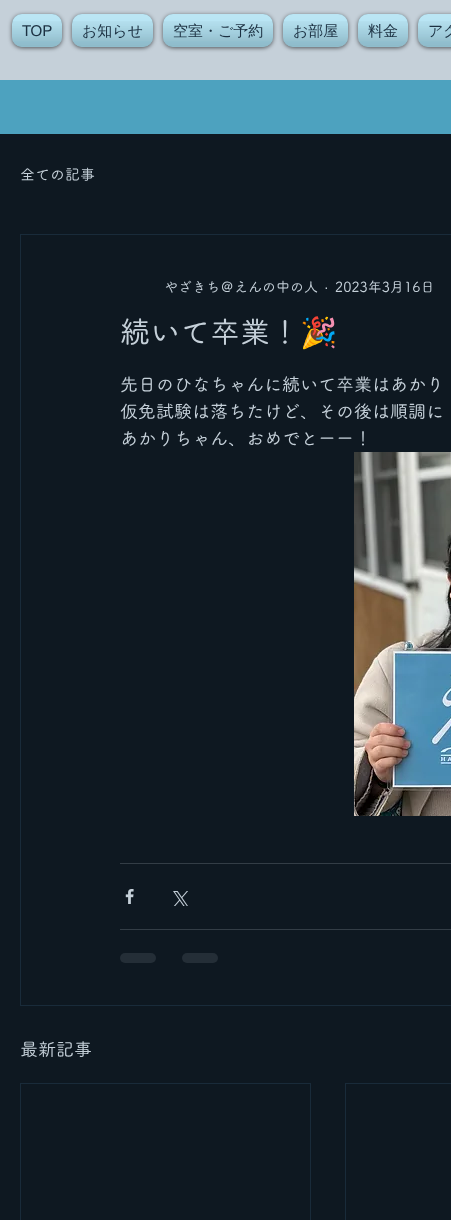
async function draw(canvas) {
	canvas.width = 451;
	canvas.height = 1220;
	const c = canvas.getContext('2d');
	c.miterLimit = 4;
	c.fontKerning = 'normal';
	async function loadImage(src) {
		const img = new Image();
		img.src = src;
		await img.decode();
		return img;
	}

	c.fillStyle = '#4da2bf';
	c.fillRect(0, 0, 451, 1220);
	c.fillStyle = '#c5d0d9';
	c.fillRect(0, 0, 451, 80);
	c.fillStyle = '#00000099';
	c.filter = 'blur(2px)';
	c.beginPath();
	c.roundRect(12, 15, 50, 33, 10);
	c.fill();
	c.filter = 'none';
	c.fillStyle = '#abe0f2';
	c.beginPath();
	c.roundRect(12, 14, 50, 33, 10);
	c.fill();
	c.drawImage(await loadImage('img1.png'), 12, 14, 50, 27);
	c.drawImage(await loadImage('img2.png'), 12, 21, 50, 26);
	c.font = '15px helvetica';
	c.fillStyle = '#1c3142';
	c.fillText('TOP', 22, 36);
	c.fillStyle = '#00000099';
	c.filter = 'blur(2px)';
	c.beginPath();
	c.roundRect(72, 15, 81, 33, 10);
	c.fill();
	c.filter = 'none';
	c.fillStyle = '#abe0f2';
	c.beginPath();
	c.roundRect(72, 14, 81, 33, 10);
	c.fill();
	c.drawImage(await loadImage('img3.png'), 72, 14, 81, 27);
	c.drawImage(await loadImage('img4.png'), 72, 21, 81, 26);
	c.font = '500 15px WenQuanYi Zen Hei';
	c.fillStyle = '#1c3142';
	c.fillText('お知らせ', 82, 36);
	c.fillStyle = '#00000099';
	c.filter = 'blur(2px)';
	c.beginPath();
	c.roundRect(163, 15, 110, 33, 10);
	c.fill();
	c.filter = 'none';
	c.fillStyle = '#abe0f2';
	c.beginPath();
	c.roundRect(163, 14, 110, 33, 10);
	c.fill();
	c.drawImage(await loadImage('img5.png'), 163, 14, 110, 27);
	c.drawImage(await loadImage('img6.png'), 163, 21, 110, 26);
	c.fillStyle = '#1c3142';
	c.fillText('空室・ご予約', 173, 36);
	c.fillStyle = '#00000099';
	c.filter = 'blur(2px)';
	c.beginPath();
	c.roundRect(283, 15, 65, 33, 10);
	c.fill();
	c.filter = 'none';
	c.fillStyle = '#abe0f2';
	c.beginPath();
	c.roundRect(283, 14, 65, 33, 10);
	c.fill();
	c.drawImage(await loadImage('img7.png'), 283, 14, 65, 27);
	c.drawImage(await loadImage('img8.png'), 283, 21, 65, 26);
	c.fillStyle = '#1c3142';
	c.fillText('お部屋', 293, 36);
	c.fillStyle = '#00000099';
	c.filter = 'blur(2px)';
	c.beginPath();
	c.roundRect(358, 15, 50, 33, 10);
	c.fill();
	c.filter = 'none';
	c.fillStyle = '#abe0f2';
	c.beginPath();
	c.roundRect(358, 14, 50, 33, 10);
	c.fill();
	c.drawImage(await loadImage('img9.png'), 358, 14, 50, 27);
	c.drawImage(await loadImage('img10.png'), 358, 21, 50, 26);
	c.fillStyle = '#1c3142';
	c.fillText('料金', 368, 36);
	c.fillStyle = '#00000099';
	c.filter = 'blur(2px)';
	c.beginPath();
	c.roundRect(418, 15, 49, 33, 10);
	c.fill();
	c.filter = 'none';
	c.fillStyle = '#abe0f2';
	c.beginPath();
	c.roundRect(418, 14, 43, 33, 10);
	c.fill();
	c.drawImage(await loadImage('img11.png'), 418, 14, 33, 27);
	c.drawImage(await loadImage('img12.png'), 418, 21, 33, 26);
	c.fillStyle = '#1c3142';
	c.fillText('アク', 428, 36);
	c.fillStyle = '#0e1821';
	c.fillRect(0, 134, 451, 1086);
	c.font = '500 15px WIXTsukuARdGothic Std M';
	c.fillStyle = '#c5d0d9';
	c.fillText('全ての記事', 20, 180);
	c.strokeStyle = '#192b3a';
	c.strokeRect(20.5, 234.5, 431, 771);
	c.font = '500 14px WIXTsukuARdGothic Std M';
	c.fillText('やざきち＠えんの中の人', 164, 292);
	c.font = '14px Liberation Sans';
	c.fillText('·', 324, 292);
	c.font = '500 14px WIXTsukuARdGothic Std M';
	c.fillText('2023年3月16日', 335, 292);
	c.font = '500 30px WIXTsukuARdGothic Std M';
	c.fillText('続いて卒業！', 120, 343);
	c.font = '30px Noto Color Emoji';
	c.fillText('🎉', 300, 343);
	c.font = '500 18px WIXTsukuARdGothic Std M';
	for (const [text, x, y] of [
		['先日のひなちゃんに続いて卒業はあかり', 120, 391],
		['仮免試験は落ちたけど、その後は順調に', 120, 418],
		['あかりちゃん、おめでとーー！', 120, 445],
	]) {
		c.fillText(text, x, y);
	}
	c.drawImage(await loadImage('img13.png'), 354, 452, 97, 364);
	c.fillStyle = '#333d46';
	c.fillRect(120, 863, 331, 1);
	c.drawImage(await loadImage('img14.png'), 125, 889, 9, 15);
	c.drawImage(await loadImage('img15.png'), 173, 891, 15, 15);
	c.fillRect(120, 929, 331, 1);
	c.fillStyle = '#242e37';
	c.beginPath();
	c.roundRect(120, 953, 36, 10, 5);
	c.fill();
	c.beginPath();
	c.roundRect(182, 953, 36, 10, 5);
	c.fill();
	c.fillStyle = '#c5d0d9';
	c.fillText('最新記事', 20, 1056);
	c.strokeRect(20.5, 1083.5, 290, 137);
	c.strokeRect(345.5, 1083.5, 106, 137);
}

draw(document.querySelector('canvas'));
